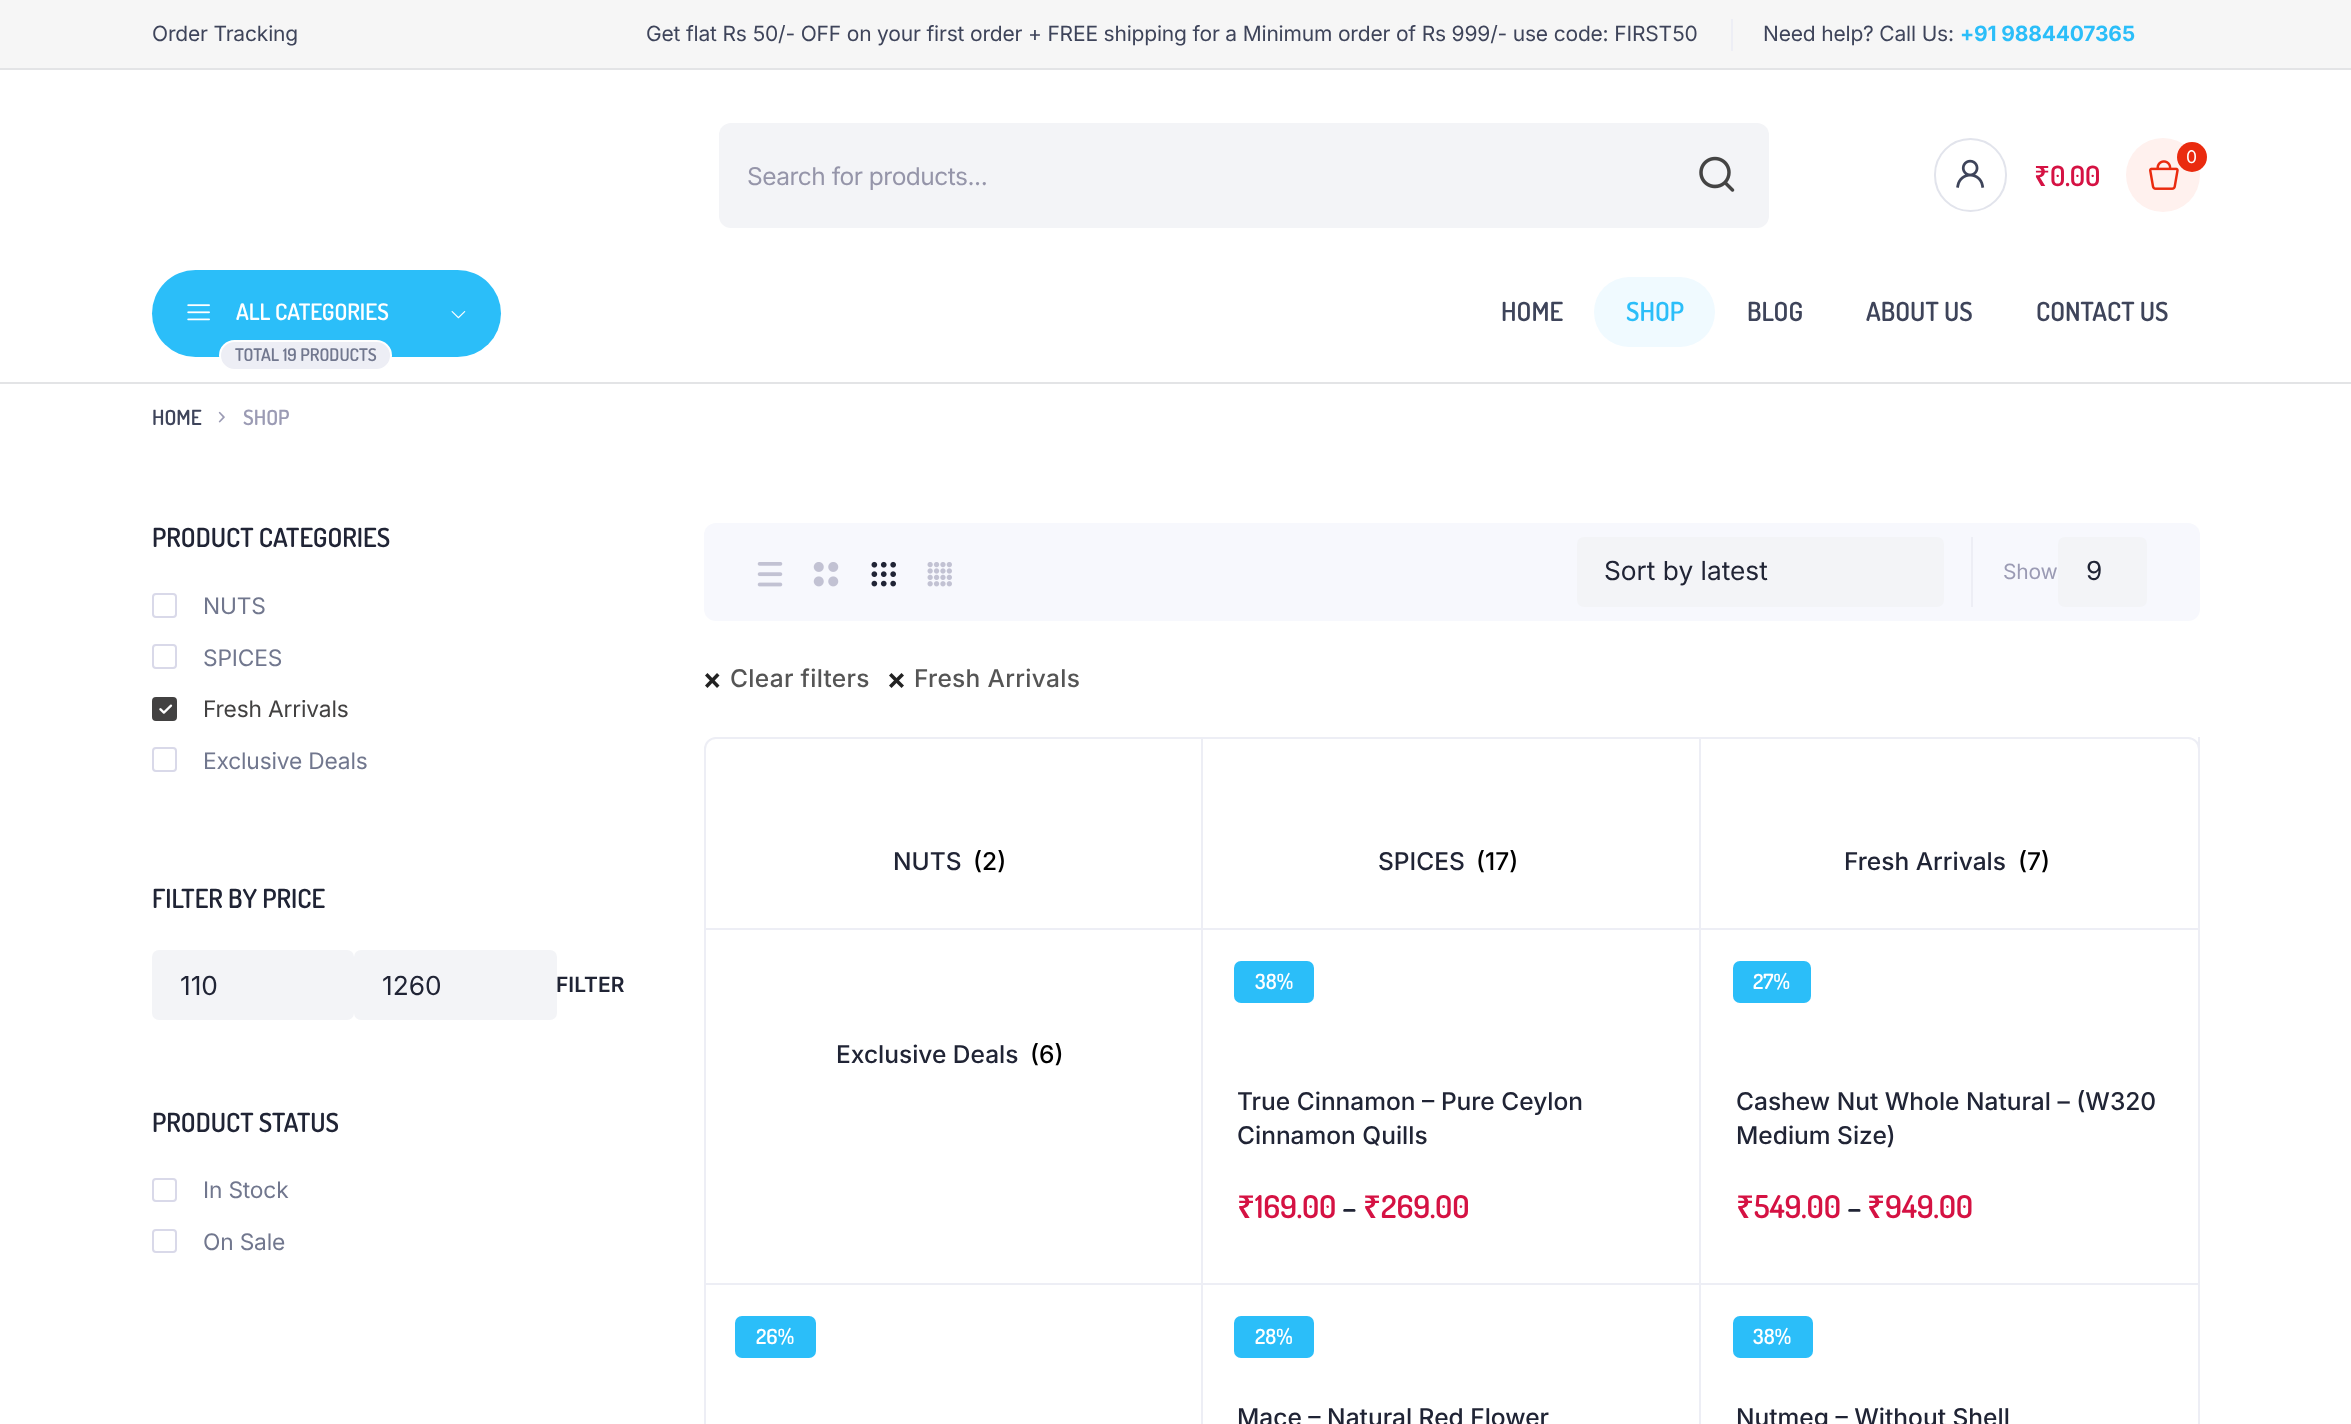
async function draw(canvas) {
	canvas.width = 2351;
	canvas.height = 1424;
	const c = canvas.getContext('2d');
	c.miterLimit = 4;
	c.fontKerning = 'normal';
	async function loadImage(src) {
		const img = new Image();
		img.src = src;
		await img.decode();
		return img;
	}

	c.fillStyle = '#fff';
	c.fillRect(0, 0, 2351, 1424);
	c.fillStyle = '#f6f6f6';
	c.fillRect(0, 0, 2351, 68);
	c.fillStyle = '#e3e4e6';
	c.fillRect(0, 68, 2351, 2);
	c.letterSpacing = '-0.18px';
	c.font = '21px Inter';
	c.fillStyle = '#3e445a';
	c.fillText('Order Tracking', 152, 41);
	c.fillText('Get flat Rs 50/- OFF on your first order + FREE shipping for a Minimum order of Rs 999/- use code: FIRST50', 646, 41);
	c.fillStyle = '#edeef5';
	c.fillRect(1731, 19, 2, 32);
	c.fillStyle = '#3e445a';
	c.fillText('Need help? Call Us:', 1763, 41);
	c.font = 'bold 21px Inter';
	c.fillStyle = '#2bbef9';
	c.fillText('+91 9884407365', 1960, 41);
	c.fillStyle = '#f3f4f7';
	c.beginPath();
	c.roundRect(719, 123, 1050, 105, 12);
	c.fill();
	c.letterSpacing = '-0.5px';
	c.font = '24.5px Inter';
	c.fillStyle = '#9595a9';
	c.fillText('Search for products...', 747, 185);
	c.drawImage(await loadImage('img1.png'), 1699, 156, 36, 36);
	c.beginPath();
	c.roundRect(1935, 139, 71, 72, 35.5);
	c.strokeStyle = '#e2e4ec';
	c.lineWidth = 2;
	c.stroke();
	c.drawImage(await loadImage('img2.png'), 1956, 159, 29, 29);
	c.fillStyle = '#fff1ee';
	c.beginPath();
	c.arc(2163, 175, 37, 0, 2 * Math.PI);
	c.fill();
	c.drawImage(await loadImage('img3.png'), 2149, 160, 30, 30);
	c.fillStyle = '#ea2b0f';
	c.beginPath();
	c.arc(2192, 157, 15, 0, 2 * Math.PI);
	c.fill();
	c.letterSpacing = '-0.18px';
	c.font = '17.5px Inter';
	c.fillStyle = '#fff';
	c.fillText('0', 2186, 163);
	c.font = '600 28px Noto Sans';
	c.fillStyle = '#d51243';
	c.fillText('₹', 2034, 186);
	c.font = '600 28px Dosis';
	c.fillText('0.00', 2050, 186);
	c.fillStyle = '#e3e4e6';
	c.fillRect(0, 382, 2351, 2);
	c.fillStyle = '#2bbef9';
	c.beginPath();
	c.roundRect(152, 270, 349, 87, 43.5);
	c.fill();
	c.drawImage(await loadImage('img4.png'), 187, 304, 23, 17);
	c.letterSpacing = '0px';
	c.font = '600 22.75px Dosis';
	c.fillStyle = '#fff';
	c.fillText('ALL CATEGORIES', 236, 320);
	c.drawImage(await loadImage('img5.png'), 451, 311, 15, 8);
	c.fillStyle = '#edeef5';
	c.beginPath();
	c.roundRect(220, 341, 171, 29, 14.5);
	c.fill();
	c.strokeStyle = '#fff';
	c.stroke();
	c.font = '600 17.5px Dosis';
	c.fillStyle = '#71778e';
	c.fillText('TOTAL 19 PRODUCTS', 235, 361);
	c.font = '600 26.25px Dosis';
	c.fillStyle = '#3e445a';
	c.fillText('HOME', 1501, 321);
	c.fillStyle = '#f0faff';
	c.beginPath();
	c.roundRect(1594, 277, 121, 70, 35);
	c.fill();
	c.fillStyle = '#2bbef9';
	c.fillText('SHOP', 1626, 321);
	c.fillStyle = '#3e445a';
	for (const [text, x, y] of [
		['BLOG', 1747, 321],
		['ABOUT US', 1866, 321],
		['CONTACT US', 2036, 321],
	]) {
		c.fillText(text, x, y);
	}
	c.font = '600 21px Dosis';
	c.fillText('HOME', 152, 425);
	c.drawImage(await loadImage('img6.png'), 218, 411, 7, 12);
	c.fillStyle = '#9b9bb4';
	c.fillText('SHOP', 243, 425);
	c.font = '600 26.25px Dosis';
	c.fillStyle = '#202435';
	c.fillText('PRODUCT CATEGORIES', 152, 547);
	c.beginPath();
	c.roundRect(153, 594, 23, 23, 3);
	c.strokeStyle = '#d9d9e9';
	c.stroke();
	c.letterSpacing = '-0.18px';
	c.font = '22.75px Inter';
	c.fillStyle = '#71778e';
	c.fillText('NUTS', 203, 614);
	c.beginPath();
	c.roundRect(153, 645, 23, 23, 3);
	c.stroke();
	c.fillText('SPICES', 203, 666);
	c.fillStyle = '#424141';
	c.beginPath();
	c.roundRect(153, 698, 23, 22, 3);
	c.fill();
	c.strokeStyle = '#424141';
	c.stroke();
	c.drawImage(await loadImage('img7.png'), 159, 704, 14, 10);
	c.fillText('Fresh Arrivals', 203, 717);
	c.beginPath();
	c.roundRect(153, 748, 23, 23, 3);
	c.strokeStyle = '#d9d9e9';
	c.stroke();
	c.fillStyle = '#71778e';
	c.fillText('Exclusive Deals', 203, 769);
	c.letterSpacing = '0px';
	c.font = '600 26.25px Dosis';
	c.fillStyle = '#202435';
	c.fillText('FILTER BY PRICE', 152, 908);
	c.fillStyle = '#f3f4f7';
	c.beginPath();
	c.roundRect(152, 950, 202, 70, 7);
	c.fill();
	c.font = '26.25px Inter';
	c.fillStyle = '#202435';
	c.fillText('110', 180, 995);
	c.fillStyle = '#f3f4f7';
	c.beginPath();
	c.roundRect(354, 950, 203, 70, 7);
	c.fill();
	c.fillStyle = '#202435';
	c.fillText('1260', 382, 995);
	c.font = '600 21px Inter';
	c.fillText('FILTER', 556, 992);
	c.font = '600 26.25px Dosis';
	c.fillText('PRODUCT STATUS', 152, 1132);
	c.beginPath();
	c.roundRect(153, 1179, 23, 22, 3);
	c.stroke();
	c.letterSpacing = '-0.18px';
	c.font = '22.75px Inter';
	c.fillStyle = '#71778e';
	c.fillText('In Stock', 203, 1198);
	c.beginPath();
	c.roundRect(153, 1230, 23, 22, 3);
	c.stroke();
	c.fillText('On Sale', 203, 1250);
	c.fillStyle = '#f7f8fd';
	c.beginPath();
	c.roundRect(704, 523, 1496, 98, 12);
	c.fill();
	c.drawImage(await loadImage('img8.png'), 757, 562, 26, 25);
	c.drawImage(await loadImage('img9.png'), 813, 562, 26, 25);
	c.drawImage(await loadImage('img10.png'), 871, 561, 25, 26);
	c.drawImage(await loadImage('img11.png'), 927, 562, 25, 25);
	c.fillStyle = '#f3f4f7';
	c.beginPath();
	c.roundRect(1577, 537, 367, 70, 7);
	c.fill();
	c.letterSpacing = '0px';
	c.font = '26.25px Inter';
	c.fillStyle = '#202435';
	c.fillText('Sort by latest', 1604, 580);
	c.fillStyle = '#edeef5';
	c.fillRect(1971, 537, 2, 70);
	c.letterSpacing = '-0.18px';
	c.font = '21px Inter';
	c.fillStyle = '#9b9bb4';
	c.fillText('Show', 2003, 579);
	c.fillStyle = '#f3f4f7';
	c.beginPath();
	c.roundRect(2058, 537, 89, 70, 7);
	c.fill();
	c.letterSpacing = '0px';
	c.font = '26.25px Inter';
	c.fillStyle = '#202435';
	c.fillText('9', 2086, 580);
	c.fillStyle = '#222';
	c.beginPath();
	c.moveTo(707.5, 673);
	c.lineTo(719.5, 685.5);
	c.lineTo(717, 688);
	c.lineTo(705, 675.5);
	c.closePath();
	c.fill();
	c.letterSpacing = '0.3px';
	c.font = '500 24.5px Inter';
	c.fillStyle = '#555';
	c.fillText('Clear filters', 730, 687);
	c.fillStyle = '#222';
	c.beginPath();
	c.moveTo(705, 685.5);
	c.lineTo(717, 673);
	c.lineTo(719.5, 675.5);
	c.lineTo(707.5, 688);
	c.closePath();
	c.fill();
	c.beginPath();
	c.moveTo(891.5, 673);
	c.lineTo(904, 685.5);
	c.lineTo(901.5, 688);
	c.lineTo(889, 675.5);
	c.closePath();
	c.fill();
	c.fillStyle = '#555';
	c.fillText('Fresh Arrivals', 914, 687);
	c.fillStyle = '#222';
	c.beginPath();
	c.moveTo(889, 685.5);
	c.lineTo(901.5, 673);
	c.lineTo(904, 675.5);
	c.lineTo(891.5, 688);
	c.closePath();
	c.fill();
	c.beginPath();
	c.roundRect(705, 738, 1494, 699, 11);
	c.strokeStyle = '#edeef5';
	c.stroke();
	c.fillStyle = '#edeef5';
	c.fillRect(1201, 737, 2, 192);
	c.fillRect(704, 928, 498, 2);
	c.letterSpacing = '0px';
	c.fillStyle = '#202435';
	c.fillText('NUTS', 893, 870);
	c.fillStyle = '#000';
	c.fillText('(2)', 973, 870);
	c.fillStyle = '#edeef5';
	c.fillRect(1699, 737, 2, 192);
	c.fillRect(1202, 928, 998, 2);
	c.fillStyle = '#202435';
	c.fillText('SPICES', 1378, 870);
	c.fillStyle = '#000';
	c.fillText('(17)', 1476, 870);
	c.fillStyle = '#edeef5';
	c.fillRect(2198, 737, 2, 11);
	c.fillStyle = '#202435';
	c.fillText('Fresh Arrivals', 1844, 870);
	c.fillStyle = '#000';
	c.fillText('(7)', 2018, 870);
	c.fillStyle = '#edeef5';
	c.fillRect(1201, 929, 2, 495);
	c.fillRect(704, 1283, 498, 2);
	c.fillStyle = '#202435';
	c.fillText('Exclusive Deals', 836, 1063);
	c.fillStyle = '#000';
	c.fillText('(6)', 1030, 1063);
	c.fillStyle = '#edeef5';
	c.fillRect(1699, 929, 2, 495);
	c.fillRect(1202, 1283, 998, 2);
	c.fillStyle = '#2bbef9';
	c.beginPath();
	c.roundRect(1234, 961, 80, 42, 7);
	c.fill();
	c.font = '600 21px Dosis';
	c.fillStyle = '#fff';
	c.fillText('38%', 1255, 989);
	c.font = '500 24.5px Inter';
	c.fillStyle = '#202435';
	c.fillText('True Cinnamon – Pure Ceylon', 1237, 1110);
	c.fillText('Cinnamon Quills', 1237, 1144);
	c.letterSpacing = '-0.18px';
	c.font = '600 31.5px Noto Sans';
	c.fillStyle = '#d51243';
	c.fillText('₹', 1237, 1218);
	c.font = '600 31.5px Dosis';
	c.fillText('169.00', 1255, 1218);
	c.fillStyle = '#202435';
	c.fillText('–', 1342, 1218);
	c.font = '600 31.5px Noto Sans';
	c.fillStyle = '#d51243';
	c.fillText('₹', 1363, 1218);
	c.font = '600 31.5px Dosis';
	c.fillText('269.00', 1381, 1218);
	c.fillStyle = '#2bbef9';
	c.beginPath();
	c.roundRect(1733, 961, 78, 42, 7);
	c.fill();
	c.letterSpacing = '0px';
	c.font = '600 21px Dosis';
	c.fillStyle = '#fff';
	c.fillText('27%', 1753, 989);
	c.font = '500 24.5px Inter';
	c.fillStyle = '#202435';
	c.fillText('Cashew Nut Whole Natural – (W320', 1736, 1110);
	c.fillText('Medium Size)', 1736, 1144);
	c.letterSpacing = '-0.18px';
	c.font = '600 31.5px Noto Sans';
	c.fillStyle = '#d51243';
	c.fillText('₹', 1736, 1218);
	c.font = '600 31.5px Dosis';
	c.fillText('549.00', 1754, 1218);
	c.fillStyle = '#202435';
	c.fillText('–', 1847, 1218);
	c.font = '600 31.5px Noto Sans';
	c.fillStyle = '#d51243';
	c.fillText('₹', 1867, 1218);
	c.font = '600 31.5px Dosis';
	c.fillText('949.00', 1885, 1218);
	c.fillStyle = '#2bbef9';
	c.beginPath();
	c.roundRect(735, 1316, 81, 42, 7);
	c.fill();
	c.letterSpacing = '0px';
	c.font = '600 21px Dosis';
	c.fillStyle = '#fff';
	c.fillText('26%', 756, 1344);
	c.fillStyle = '#2bbef9';
	c.beginPath();
	c.roundRect(1234, 1316, 80, 42, 7);
	c.fill();
	c.fillStyle = '#fff';
	c.fillText('28%', 1255, 1344);
	c.font = '500 24.5px Inter';
	c.fillStyle = '#202435';
	c.fillText('Mace – Natural Red Flower', 1237, 1426);
	c.fillStyle = '#2bbef9';
	c.beginPath();
	c.roundRect(1733, 1316, 80, 42, 7);
	c.fill();
	c.font = '600 21px Dosis';
	c.fillStyle = '#fff';
	c.fillText('38%', 1753, 1344);
	c.font = '500 24.5px Inter';
	c.fillStyle = '#202435';
	c.fillText('Nutmeg – Without Shell', 1736, 1426);
}

draw(document.querySelector('canvas'));
